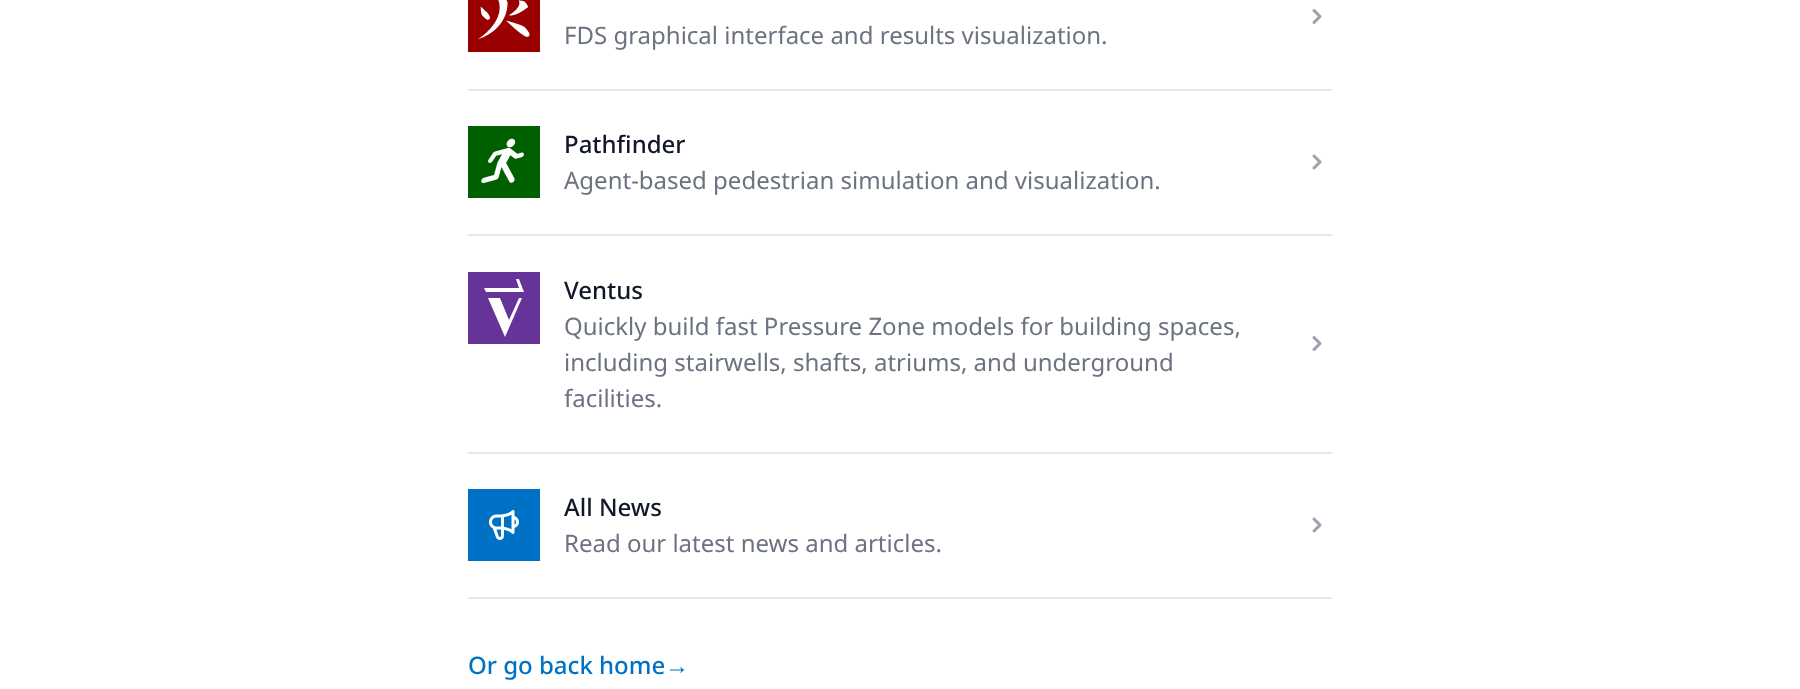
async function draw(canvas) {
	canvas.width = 1800;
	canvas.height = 689;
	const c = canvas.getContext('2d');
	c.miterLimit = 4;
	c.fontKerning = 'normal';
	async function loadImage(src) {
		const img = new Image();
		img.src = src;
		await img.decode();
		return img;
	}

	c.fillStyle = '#fff';
	c.fillRect(0, 0, 1800, 689);
	c.fillStyle = '#e5e7eb';
	c.fillRect(468, 597, 864, 2);
	c.drawImage(await loadImage('img1.png'), 468, 0, 72, 52);
	c.drawImage(await loadImage('img2.png'), 1312, 9, 10, 15);
	c.font = '24px Noto Sans';
	c.fillStyle = '#6b7280';
	c.fillText('FDS graphical interface and results visualization.', 564, 44);
	c.fillStyle = '#e5e7eb';
	c.fillRect(468, 89, 864, 2);
	c.drawImage(await loadImage('img3.png'), 468, 126, 72, 72);
	c.font = '500 24px Noto Sans';
	c.fillStyle = '#111827';
	c.fillText('Pathfinder', 564, 153);
	c.font = '24px Noto Sans';
	c.fillStyle = '#6b7280';
	c.fillText('Agent-based pedestrian simulation and visualization.', 564, 189);
	c.drawImage(await loadImage('img4.png'), 1312, 154, 10, 16);
	c.fillStyle = '#e5e7eb';
	c.fillRect(468, 234, 864, 2);
	c.fillStyle = '#639';
	c.fillRect(468, 272, 72, 72);
	c.fillStyle = '#fff';
	c.beginPath();
	c.moveTo(519, 298);
	c.lineTo(522, 298);
	c.lineTo(505, 337);
	c.lineTo(488, 298);
	c.lineTo(500, 298);
	c.lineTo(509, 320);
	c.lineTo(519, 298);
	c.moveTo(524, 292);
	c.lineTo(486, 292);
	c.lineTo(484, 288);
	c.lineTo(519, 288);
	c.lineTo(516, 279);
	c.lineTo(519, 279);
	c.lineTo(524, 292);
	c.fill('evenodd');
	c.font = '500 24px Noto Sans';
	c.fillStyle = '#111827';
	c.fillText('Ventus', 564, 299);
	c.font = '24px Noto Sans';
	c.fillStyle = '#6b7280';
	for (const [text, x, y] of [
		['Quickly build fast Pressure Zone models for building spaces,', 564, 335],
		['including stairwells, shafts, atriums, and underground', 564, 371],
		['facilities.', 564, 407],
	]) {
		c.fillText(text, x, y);
	}
	c.drawImage(await loadImage('img2.png'), 1312, 336, 10, 15);
	c.fillStyle = '#e5e7eb';
	c.fillRect(468, 452, 864, 2);
	c.fillStyle = '#0072c6';
	c.fillRect(468, 489, 72, 72);
	c.drawImage(await loadImage('img5.png'), 489, 510, 30, 30);
	c.font = '500 24px Noto Sans';
	c.fillStyle = '#111827';
	c.fillText('All News', 564, 516);
	c.font = '24px Noto Sans';
	c.fillStyle = '#6b7280';
	c.fillText('Read our latest news and articles.', 564, 552);
	c.drawImage(await loadImage('img4.png'), 1312, 517, 10, 16);
	c.font = '500 24px Noto Sans';
	c.fillStyle = '#0072c6';
	c.fillText('Or go back home', 468, 674);
	c.font = '24px Liberation Sans';
	c.fillText('→', 665, 674);
}

draw(document.querySelector('canvas'));
